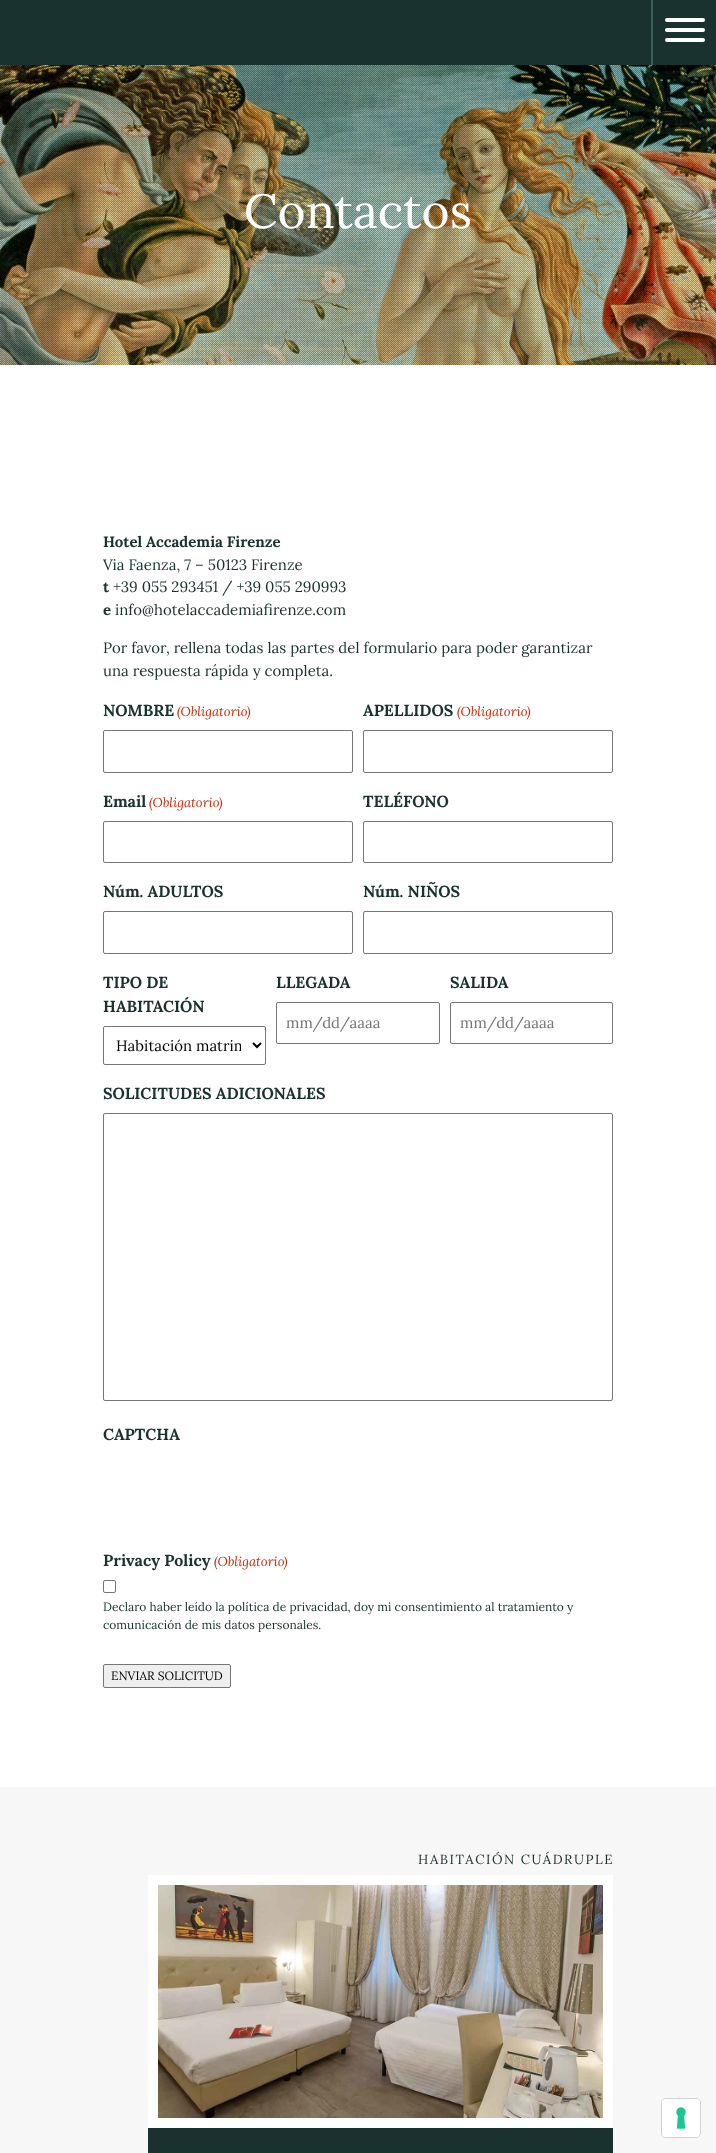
async function draw(canvas) {
	canvas.width = 716;
	canvas.height = 2153;
	const c = canvas.getContext('2d');
	c.miterLimit = 4;
	c.fontKerning = 'normal';
	async function loadImage(src) {
		const img = new Image();
		img.src = src;
		await img.decode();
		return img;
	}

	c.fillStyle = '#fff';
	c.fillRect(0, 0, 716, 2153);
	c.fillStyle = '#19322f';
	c.fillRect(0, 0, 716, 65);
	c.fillStyle = '#3f5d59';
	c.fillRect(651, 0, 2, 65);
	c.fillStyle = '#fff';
	c.beginPath();
	c.roundRect(665, 38, 40, 4, 2);
	c.fill();
	c.beginPath();
	c.roundRect(665, 18, 40, 4, 2);
	c.fill();
	c.beginPath();
	c.roundRect(665, 28, 40, 4, 2);
	c.fill();
	c.drawImage(await loadImage('img1.png'), 0, 65, 716, 300);
	c.drawImage(await loadImage('img2.png'), 0, 65, 716, 300);
	c.font = '48px Lora';
	c.fillText('Contactos', 244, 228);
	c.font = 'bold 15px Lora';
	c.fillStyle = '#19322f';
	c.fillText('Hotel Accademia Firenze', 103, 547);
	c.font = '15px Lora';
	c.fillText('Via Faenza, 7 – 50123 Firenze', 103, 570);
	c.font = 'bold 15px Lora';
	c.fillText('t', 103, 592);
	c.font = '15px Lora';
	c.fillText('+39 055 293451 / +39 055 290993', 113, 592);
	c.font = 'bold 15px Lora';
	c.fillText('e', 103, 615);
	c.font = '15px Lora';
	for (const [text, x, y] of [
		['info@hotelaccademiafirenze.com', 115, 615],
		['Por favor, rellena todas las partes del formulario para poder garantizar', 103, 653],
		['una respuesta rápida y completa.', 103, 676],
	]) {
		c.fillText(text, x, y);
	}
	c.font = 'bold 16px Lora';
	c.fillText('NOMBRE', 103, 716);
	c.font = 'italic 13px Lora';
	c.fillStyle = '#c02b0a';
	c.fillText('(Obligatorio)', 177, 716);
	c.beginPath();
	c.roundRect(103.5, 730.5, 249, 42, 1.5);
	c.strokeStyle = '#767676';
	c.stroke();
	c.font = 'bold 16px Lora';
	c.fillStyle = '#19322f';
	c.fillText('APELLIDOS', 363, 716);
	c.font = 'italic 13px Lora';
	c.fillStyle = '#c02b0a';
	c.fillText('(Obligatorio)', 457, 716);
	c.beginPath();
	c.roundRect(363.5, 730.5, 249, 42, 1.5);
	c.stroke();
	c.font = 'bold 16px Lora';
	c.fillStyle = '#19322f';
	c.fillText('Email', 103, 807);
	c.font = 'italic 13px Lora';
	c.fillStyle = '#c02b0a';
	c.fillText('(Obligatorio)', 149, 807);
	c.beginPath();
	c.roundRect(103.5, 821.5, 249, 41, 1.5);
	c.stroke();
	c.font = 'bold 16px Lora';
	c.fillStyle = '#19322f';
	c.fillText('TELÉFONO', 363, 807);
	c.beginPath();
	c.roundRect(363.5, 821.5, 249, 41, 1.5);
	c.stroke();
	c.fillText('Núm. ADULTOS', 103, 897);
	c.beginPath();
	c.roundRect(103.5, 911.5, 249, 42, 1.5);
	c.stroke();
	c.fillText('Núm. NIÑOS', 363, 897);
	c.beginPath();
	c.roundRect(363.5, 911.5, 249, 42, 1.5);
	c.stroke();
	c.fillText('TIPO DE', 103, 988);
	c.fillText('HABITACIÓN', 103, 1012);
	c.beginPath();
	c.roundRect(103.5, 1026.5, 162, 38, 1.5);
	c.stroke();
	c.beginPath();
	c.moveTo(253, 1043);
	c.lineTo(257, 1047);
	c.lineTo(261, 1043);
	c.strokeStyle = '#000';
	c.lineWidth = 2;
	c.stroke();
	c.save();
	c.beginPath();
	c.rect(116, 1035, 125, 21);
	c.clip();
	c.font = '15px Lora';
	c.fillStyle = '#000';
	c.fillText('Habitación matrim', 116, 1051);
	c.restore();
	c.fillText('LLEGADA', 276, 988);
	c.beginPath();
	c.roundRect(276.5, 1002.5, 163, 41, 1.5);
	c.strokeStyle = '#767676';
	c.lineWidth = 1;
	c.stroke();
	c.font = '15px Lora';
	c.fillStyle = '#757575';
	c.fillText('mm/dd/aaaa', 286, 1028);
	c.font = 'bold 16px Lora';
	c.fillStyle = '#19322f';
	c.fillText('SALIDA', 450, 988);
	c.beginPath();
	c.roundRect(450.5, 1002.5, 162, 41, 1.5);
	c.stroke();
	c.font = '15px Lora';
	c.fillStyle = '#757575';
	c.fillText('mm/dd/aaaa', 460, 1028);
	c.font = 'bold 16px Lora';
	c.fillStyle = '#19322f';
	c.fillText('SOLICITUDES ADICIONALES', 103, 1099);
	c.beginPath();
	c.roundRect(103.5, 1113.5, 509, 287, 1.5);
	c.stroke();
	c.fillText('CAPTCHA', 103, 1440);
	c.fillText('Privacy Policy', 103, 1566);
	c.font = 'italic 13px Lora';
	c.fillStyle = '#c02b0a';
	c.fillText('(Obligatorio)', 214, 1566);
	c.beginPath();
	c.roundRect(103.5, 1580.5, 12, 12, 1.5);
	c.stroke();
	c.font = '12px Lora';
	c.fillStyle = '#19322f';
	c.fillText('Declaro haber leído la política de privacidad, doy mi consentimiento al tratamiento y', 103, 1611);
	c.fillText('comunicación de mis datos personales.', 103, 1629);
	c.fillStyle = '#efefef';
	c.beginPath();
	c.roundRect(103.5, 1664.5, 127, 23, 1.5);
	c.fill();
	c.stroke();
	c.fillStyle = '#000';
	c.fillText('ENVIAR SOLICITUD', 111, 1680);
	c.fillStyle = '#f7f7f7';
	c.fillRect(0, 1787, 716, 366);
	c.letterSpacing = '1.6px';
	c.font = '13.25px Lora';
	c.fillStyle = '#19322f';
	c.fillText('HABITACIÓN CUÁDRUPLE', 418, 1864);
	c.fillStyle = '#fff';
	c.fillRect(148, 1875, 465, 253);
	c.drawImage(await loadImage('img3.png'), 158, 1885, 445, 233);
	c.fillStyle = '#19322f';
	c.fillRect(148, 2128, 465, 25);
	c.beginPath();
	c.roundRect(661.5, 2098.5, 39, 39, 4.5);
	c.strokeStyle = '#d2d2d2';
	c.stroke();
	c.fillStyle = '#fff';
	c.beginPath();
	c.roundRect(662, 2099, 38, 38, 4);
	c.fill();
	c.drawImage(await loadImage('img4.png'), 676, 2107, 10, 22);
}

draw(document.querySelector('canvas'));
